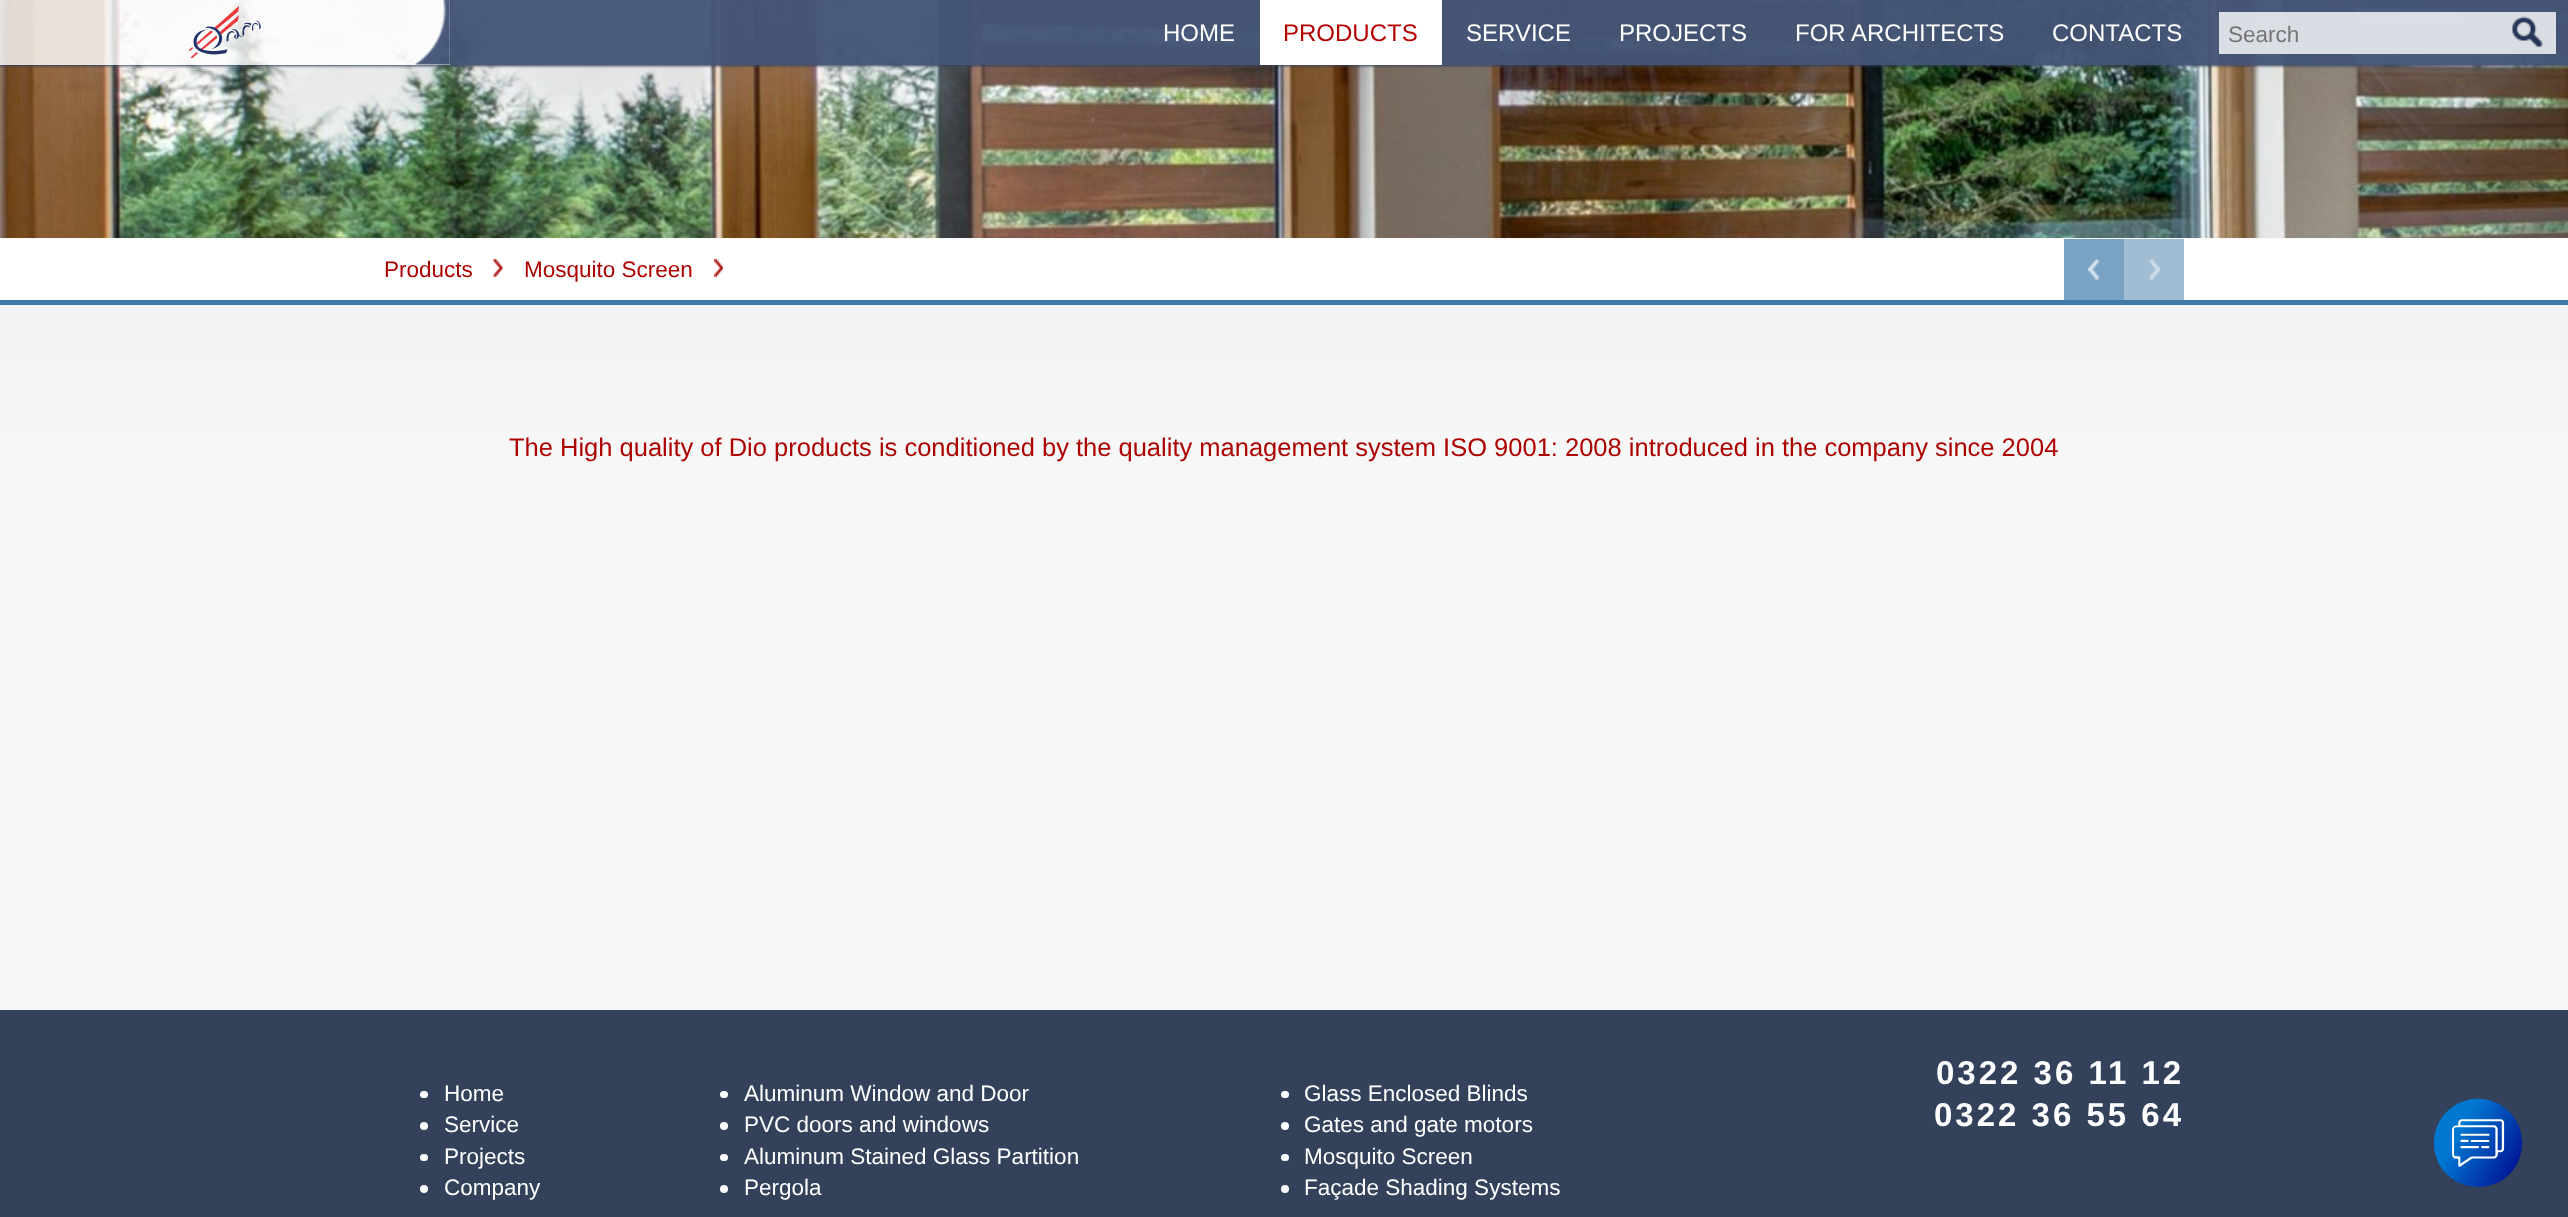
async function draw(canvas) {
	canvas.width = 2568;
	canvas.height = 1217;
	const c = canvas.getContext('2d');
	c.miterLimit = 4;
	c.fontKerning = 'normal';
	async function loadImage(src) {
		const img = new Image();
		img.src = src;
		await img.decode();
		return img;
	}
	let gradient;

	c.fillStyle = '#f7f7f7';
	c.fillRect(0, 0, 2568, 1217);
	c.drawImage(await loadImage('img1.png'), 0, 0, 2568, 238);
	c.save();
	c.beginPath();
	c.moveTo(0, 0);
	c.lineTo(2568, 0);
	c.lineTo(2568, 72);
	c.lineTo(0, 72);
	c.closePath();
	c.moveTo(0, 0);
	c.lineTo(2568, 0);
	c.lineTo(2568, 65);
	c.lineTo(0, 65);
	c.closePath();
	c.clip('evenodd');
	c.fillStyle = '#33415b';
	c.filter = 'blur(1.5px)';
	c.beginPath();
	c.rect(-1, -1, 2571, 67);
	c.fill();
	c.filter = 'none';
	c.restore();
	c.fillStyle = '#ffffffcc';
	c.fillRect(0, 0, 2568, 65);
	c.drawImage(await loadImage('img2.png'), 189, 6, 72, 53);
	c.fillStyle = '#1e325acc';
	c.fillRect(450, 0, 2118, 65);
	c.drawImage(await loadImage('img3.png'), 415, 0, 36, 65);
	c.font = '24px Liberation Sans';
	c.fillStyle = '#fff';
	c.fillText('HOME', 1163, 41);
	c.fillRect(1260, 0, 182, 65);
	c.fillStyle = '#b30000';
	c.fillText('PRODUCTS', 1283, 41);
	c.fillStyle = '#fff';
	for (const [text, x, y] of [
		['SERVICE', 1466, 41],
		['PROJECTS', 1619, 41],
		['FOR ARCHITECTS', 1795, 41],
		['CONTACTS', 2052, 41],
	]) {
		c.fillText(text, x, y);
	}
	c.fillStyle = '#ffffffcc';
	c.fillRect(2219, 12, 337, 42);
	c.font = '22.5px Liberation Sans';
	c.fillStyle = '#757575';
	c.fillText('Search', 2228, 42);
	c.drawImage(await loadImage('img4.png'), 2512, 16, 31, 32);
	gradient = c.createLinearGradient(1284, 238, 1284, 1010);
	gradient.addColorStop(0, '#f2f2f2');
	gradient.addColorStop(0.5, '#f7f7f7');
	c.fillStyle = gradient;
	c.fillRect(0, 305, 2568, 126);
	c.fillStyle = '#fff';
	c.fillRect(0, 239, 2568, 61);
	c.fillStyle = '#407aa9';
	c.fillRect(0, 300, 2568, 5);
	c.fillStyle = '#ac0300';
	c.fillText('Products', 384, 277);
	c.drawImage(await loadImage('img5.png'), 493, 259, 10, 18);
	c.fillText('Mosquito Screen', 524, 277);
	c.drawImage(await loadImage('img6.png'), 714, 259, 9, 18);
	c.fillStyle = '#79a2c3';
	c.fillRect(2064, 239, 60, 61);
	c.drawImage(await loadImage('img7.png'), 2088, 259, 12, 21);
	c.fillStyle = '#a0bdd4';
	c.fillRect(2124, 239, 60, 61);
	c.drawImage(await loadImage('img8.png'), 2149, 259, 11, 21);
	c.font = '25.5px Liberation Sans';
	c.fillStyle = '#ac0300';
	c.fillText('The High quality of Dio products is conditioned by the quality management system ISO 9001: 2008 introduced in the company since 2004', 509, 456);
	c.fillStyle = '#33415b';
	c.fillRect(0, 1010, 2568, 207);
	c.fillStyle = '#fff';
	c.beginPath();
	c.roundRect(420, 1091, 8, 7, 3.5);
	c.fill();
	c.font = '22.5px Liberation Sans';
	c.fillText('Home', 444, 1101);
	c.beginPath();
	c.arc(424, 1126, 4, 0, 2 * Math.PI);
	c.fill();
	c.fillText('Service', 444, 1132);
	c.beginPath();
	c.roundRect(420, 1154, 8, 7, 3.5);
	c.fill();
	c.fillText('Projects', 444, 1164);
	c.beginPath();
	c.arc(424, 1189, 4, 0, 2 * Math.PI);
	c.fill();
	c.fillText('Company', 444, 1195);
	c.beginPath();
	c.roundRect(720, 1091, 8, 7, 3.5);
	c.fill();
	c.fillText('Aluminum Window and Door', 744, 1101);
	c.beginPath();
	c.arc(724, 1126, 4, 0, 2 * Math.PI);
	c.fill();
	c.fillText('PVC doors and windows', 744, 1132);
	c.beginPath();
	c.roundRect(720, 1154, 8, 7, 3.5);
	c.fill();
	c.fillText('Aluminum Stained Glass Partition', 744, 1164);
	c.beginPath();
	c.arc(724, 1189, 4, 0, 2 * Math.PI);
	c.fill();
	c.fillText('Pergola', 744, 1195);
	c.beginPath();
	c.roundRect(1281, 1091, 8, 7, 3.5);
	c.fill();
	c.fillText('Glass Enclosed Blinds', 1304, 1101);
	c.beginPath();
	c.arc(1285, 1126, 4, 0, 2 * Math.PI);
	c.fill();
	c.fillText('Gates and gate motors', 1304, 1132);
	c.beginPath();
	c.roundRect(1281, 1154, 8, 7, 3.5);
	c.fill();
	c.fillText('Mosquito Screen', 1304, 1164);
	c.beginPath();
	c.arc(1285, 1189, 4, 0, 2 * Math.PI);
	c.fill();
	c.fillText('Façade Shading Systems', 1304, 1195);
	c.letterSpacing = '3px';
	c.font = 'bold 33px Liberation Sans';
	c.fillText('0322 36 11 12', 1936, 1084);
	c.fillText('0322 36 55 64', 1934, 1126);
	c.drawImage(await loadImage('img9.png'), 2433, 1098, 90, 90);
}

draw(document.querySelector('canvas'));
